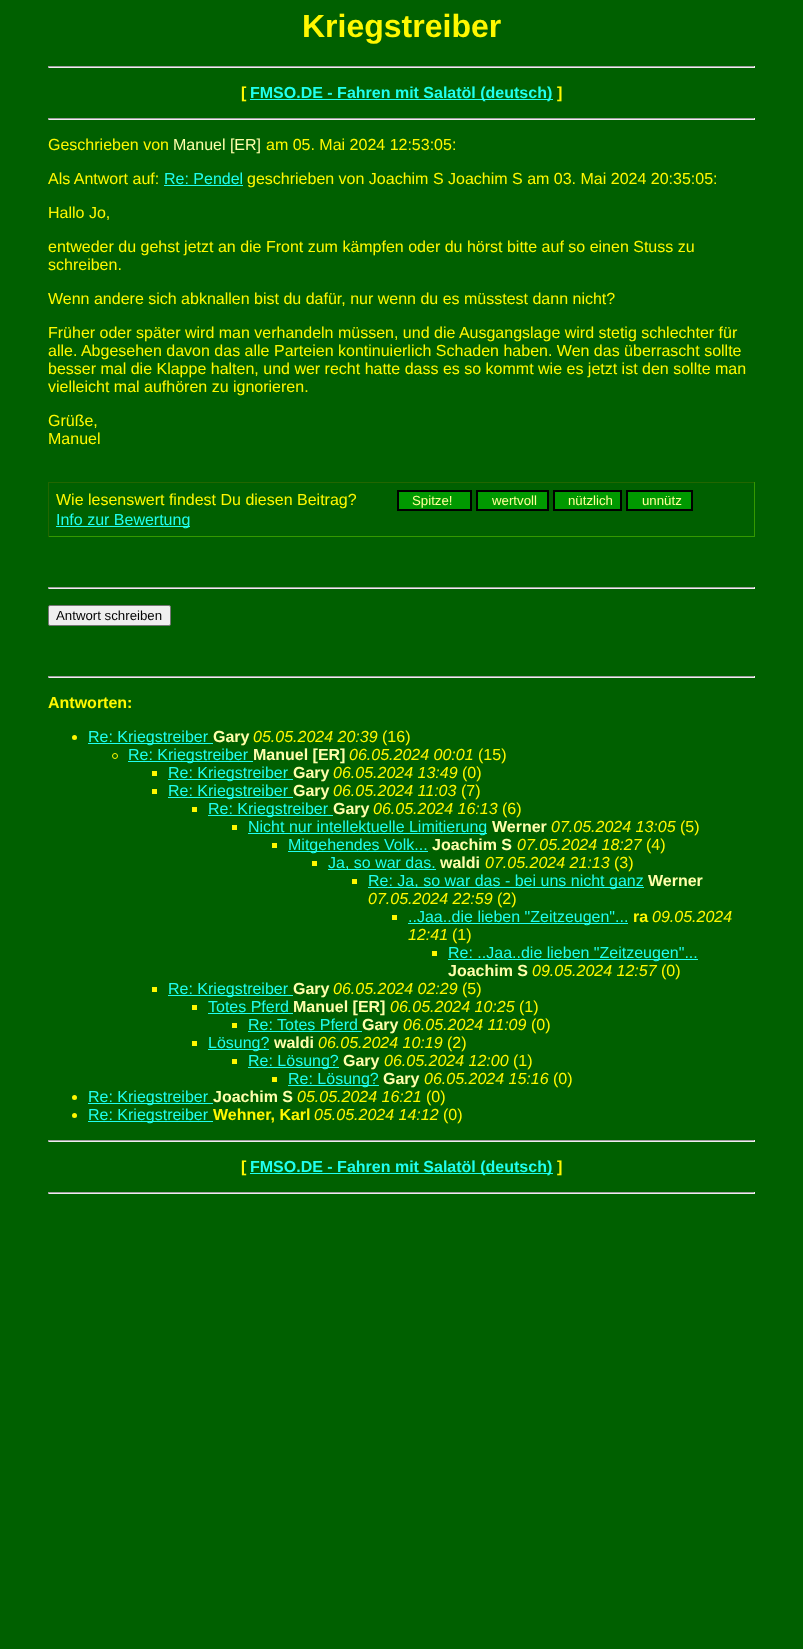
async function draw(canvas) {
	canvas.width = 803;
	canvas.height = 1649;
	const c = canvas.getContext('2d');
	c.miterLimit = 4;
	c.fontKerning = 'normal';

	c.fillStyle = '#006000';
	c.fillRect(0, 0, 803, 1649);
	c.font = 'bold 32px Liberation Sans';
	c.fillStyle = '#fff800';
	c.fillText('Kriegstreiber', 302, 37);
	for (const [x, y, w, h, color] of [
		[48, 66, 707, 1, '#9f9f9f'],
		[754, 66, 1, 2, '#eee'],
		[48, 67, 707, 1, '#eee'],
		[48, 66, 1, 2, '#9f9f9f'],
	]) {
		c.fillStyle = color;
		c.fillRect(x, y, w, h);
	}
	c.font = 'bold 16px Liberation Sans';
	c.fillStyle = '#fff800';
	c.fillText('[', 241, 98);
	c.fillStyle = '#20ffef';
	c.fillRect(250, 99, 303, 1);
	c.fillText('FMSO.DE - Fahren mit Salatöl (deutsch)', 250, 98);
	c.fillStyle = '#fff800';
	c.fillText(']', 557, 98);
	for (const [x, y, w, h, color] of [
		[48, 118, 707, 1, '#9f9f9f'],
		[754, 118, 1, 2, '#eee'],
		[48, 119, 707, 1, '#eee'],
		[48, 118, 1, 2, '#9f9f9f'],
	]) {
		c.fillStyle = color;
		c.fillRect(x, y, w, h);
	}
	c.font = '16px Liberation Sans';
	c.fillStyle = '#fff800';
	c.fillText('Geschrieben von', 48, 150);
	c.fillStyle = '#ffa';
	c.fillText('Manuel [ER]', 173, 150);
	c.fillStyle = '#fff800';
	c.fillText('am 05. Mai 2024 12:53:05:', 266, 150);
	c.fillText('Als Antwort auf:', 48, 184);
	c.fillStyle = '#20ffef';
	c.fillText('Re: Pendel', 164, 184);
	c.fillRect(164, 185, 79, 1);
	c.fillStyle = '#fff800';
	for (const [text, x, y] of [
		['geschrieben von Joachim S Joachim S am 03. Mai 2024 20:35:05:', 247, 184],
		['Hallo Jo,', 48, 218],
		['entweder du gehst jetzt an die Front zum kämpfen oder du hörst bitte auf so einen Stuss zu', 48, 252],
		['schreiben.', 48, 270],
		['Wenn andere sich abknallen bist du dafür, nur wenn du es müsstest dann nicht?', 48, 304],
		['Früher oder später wird man verhandeln müssen, und die Ausgangslage wird stetig schlechter für', 48, 338],
		['alle. Abgesehen davon das alle Parteien kontinuierlich Schaden haben. Wen das überrascht sollte', 48, 356],
		['besser mal die Klappe halten, und wer recht hatte dass es so kommt wie es jetzt ist den sollte man', 48, 374],
		['vielleicht mal aufhören zu ignorieren.', 48, 392],
		['Grüße,', 48, 426],
		['Manuel', 48, 444],
	]) {
		c.fillText(text, x, y);
	}
	for (const [x, y, w, h, color] of [
		[48, 482, 707, 1, '#260'],
		[754, 482, 1, 55, '#390'],
		[48, 536, 707, 1, '#390'],
		[48, 482, 1, 55, '#260'],
	]) {
		c.fillStyle = color;
		c.fillRect(x, y, w, h);
	}
	c.fillStyle = '#fff800';
	c.fillText('Wie lesenswert findest Du diesen Beitrag?', 56, 505);
	c.fillStyle = '#090';
	c.beginPath();
	c.rect(398, 491, 73, 19);
	c.fill();
	c.strokeStyle = '#000';
	c.lineWidth = 2;
	c.stroke();
	c.font = '13.25px Liberation Sans';
	c.fillStyle = '#ff9';
	c.fillText('Spitze!', 412, 505);
	c.fillStyle = '#090';
	c.beginPath();
	c.rect(477, 491, 71, 19);
	c.fill();
	c.stroke();
	c.fillStyle = '#ff9';
	c.fillText('wertvoll', 492, 505);
	c.fillStyle = '#090';
	c.beginPath();
	c.rect(554, 491, 67, 19);
	c.fill();
	c.stroke();
	c.fillStyle = '#ff9';
	c.fillText('nützlich', 568, 505);
	c.fillStyle = '#090';
	c.beginPath();
	c.rect(627, 491, 65, 19);
	c.fill();
	c.stroke();
	c.fillStyle = '#ff9';
	c.fillText('unnütz', 642, 505);
	c.fillStyle = '#20ffef';
	c.fillRect(56, 526, 134, 1);
	c.font = '16px Liberation Sans';
	c.fillText('Info zur Bewertung', 56, 525);
	for (const [x, y, w, h, color] of [
		[48, 587, 707, 1, '#9f9f9f'],
		[754, 587, 1, 2, '#eee'],
		[48, 588, 707, 1, '#eee'],
		[48, 587, 1, 2, '#9f9f9f'],
	]) {
		c.fillStyle = color;
		c.fillRect(x, y, w, h);
	}
	c.fillStyle = '#efefef';
	c.beginPath();
	c.roundRect(48.5, 605.5, 122, 20, 1.5);
	c.fill();
	c.strokeStyle = '#767676';
	c.lineWidth = 1;
	c.stroke();
	c.font = '13.25px Liberation Sans';
	c.fillStyle = '#000';
	c.fillText('Antwort schreiben', 56, 620);
	for (const [x, y, w, h, color] of [
		[48, 676, 707, 1, '#9f9f9f'],
		[754, 676, 1, 2, '#eee'],
		[48, 677, 707, 1, '#eee'],
		[48, 676, 1, 2, '#9f9f9f'],
	]) {
		c.fillStyle = color;
		c.fillRect(x, y, w, h);
	}
	c.font = 'bold 16px Liberation Sans';
	c.fillStyle = '#fff800';
	c.fillText('Antworten:', 48, 708);
	c.beginPath();
	c.arc(74.5, 737.5, 2.5, 0, 2 * Math.PI);
	c.fill();
	c.fillStyle = '#20ffef';
	c.fillRect(88, 743, 125, 1);
	c.font = '16px Liberation Sans';
	c.fillText('Re: Kriegstreiber', 88, 742);
	c.font = 'bold 16px Liberation Sans';
	c.fillStyle = '#ffa';
	c.fillText('Gary', 213, 742);
	c.font = 'italic 16px Liberation Sans';
	c.fillStyle = '#fff800';
	c.fillText('05.05.2024 20:39', 253, 742);
	c.font = '16px Liberation Sans';
	c.fillText('(16)', 382, 742);
	c.beginPath();
	c.arc(115, 756, 2.5, 0, 2 * Math.PI);
	c.strokeStyle = '#fff800';
	c.stroke();
	c.fillStyle = '#20ffef';
	c.fillRect(128, 761, 125, 1);
	c.fillText('Re: Kriegstreiber', 128, 760);
	c.font = 'bold 16px Liberation Sans';
	c.fillStyle = '#ffa';
	c.fillText('Manuel [ER]', 253, 760);
	c.font = 'italic 16px Liberation Sans';
	c.fillStyle = '#fff800';
	c.fillText('06.05.2024 00:01', 349, 760);
	c.font = '16px Liberation Sans';
	c.fillText('(15)', 478, 760);
	c.fillRect(152, 771, 5, 5);
	c.fillStyle = '#20ffef';
	c.fillRect(168, 779, 125, 1);
	c.fillText('Re: Kriegstreiber', 168, 778);
	c.font = 'bold 16px Liberation Sans';
	c.fillStyle = '#ffa';
	c.fillText('Gary', 293, 778);
	c.font = 'italic 16px Liberation Sans';
	c.fillStyle = '#fff800';
	c.fillText('06.05.2024 13:49', 333, 778);
	c.font = '16px Liberation Sans';
	c.fillText('(0)', 462, 778);
	c.fillRect(152, 789, 5, 5);
	c.fillStyle = '#20ffef';
	c.fillRect(168, 797, 125, 1);
	c.fillText('Re: Kriegstreiber', 168, 796);
	c.font = 'bold 16px Liberation Sans';
	c.fillStyle = '#ffa';
	c.fillText('Gary', 293, 796);
	c.font = 'italic 16px Liberation Sans';
	c.fillStyle = '#fff800';
	c.fillText('06.05.2024 11:03', 333, 796);
	c.font = '16px Liberation Sans';
	c.fillText('(7)', 461, 796);
	c.fillRect(192, 807, 5, 5);
	c.fillStyle = '#20ffef';
	c.fillRect(208, 815, 125, 1);
	c.fillText('Re: Kriegstreiber', 208, 814);
	c.font = 'bold 16px Liberation Sans';
	c.fillStyle = '#ffa';
	c.fillText('Gary', 333, 814);
	c.font = 'italic 16px Liberation Sans';
	c.fillStyle = '#fff800';
	c.fillText('06.05.2024 16:13', 373, 814);
	c.font = '16px Liberation Sans';
	c.fillText('(6)', 502, 814);
	c.fillRect(232, 825, 5, 5);
	c.fillStyle = '#20ffef';
	c.fillRect(248, 833, 239, 1);
	c.fillText('Nicht nur intellektuelle Limitierung', 248, 832);
	c.font = 'bold 16px Liberation Sans';
	c.fillStyle = '#ffa';
	c.fillText('Werner', 492, 832);
	c.font = 'italic 16px Liberation Sans';
	c.fillStyle = '#fff800';
	c.fillText('07.05.2024 13:05', 551, 832);
	c.font = '16px Liberation Sans';
	c.fillText('(5)', 680, 832);
	c.fillRect(272, 843, 5, 5);
	c.fillStyle = '#20ffef';
	c.fillRect(288, 851, 140, 1);
	c.fillText('Mitgehendes Volk...', 288, 850);
	c.font = 'bold 16px Liberation Sans';
	c.fillStyle = '#ffa';
	c.fillText('Joachim S', 432, 850);
	c.font = 'italic 16px Liberation Sans';
	c.fillStyle = '#fff800';
	c.fillText('07.05.2024 18:27', 517, 850);
	c.font = '16px Liberation Sans';
	c.fillText('(4)', 646, 850);
	c.fillRect(312, 861, 5, 5);
	c.fillStyle = '#20ffef';
	c.fillRect(328, 869, 108, 1);
	c.fillText('Ja, so war das.', 328, 868);
	c.font = 'bold 16px Liberation Sans';
	c.fillStyle = '#ffa';
	c.fillText('waldi', 440, 868);
	c.font = 'italic 16px Liberation Sans';
	c.fillStyle = '#fff800';
	c.fillText('07.05.2024 21:13', 485, 868);
	c.font = '16px Liberation Sans';
	c.fillText('(3)', 614, 868);
	c.fillRect(352, 879, 5, 5);
	c.fillStyle = '#20ffef';
	c.fillRect(368, 887, 276, 1);
	c.fillText('Re: Ja, so war das - bei uns nicht ganz', 368, 886);
	c.font = 'bold 16px Liberation Sans';
	c.fillStyle = '#ffa';
	c.fillText('Werner', 648, 886);
	c.font = 'italic 16px Liberation Sans';
	c.fillStyle = '#fff800';
	c.fillText('07.05.2024 22:59', 368, 904);
	c.font = '16px Liberation Sans';
	c.fillText('(2)', 497, 904);
	c.fillRect(392, 915, 5, 5);
	c.fillStyle = '#20ffef';
	c.fillRect(408, 923, 220, 1);
	c.fillText('..Jaa..die lieben "Zeitzeugen"...', 408, 922);
	c.font = 'bold 16px Liberation Sans';
	c.fillStyle = '#fff800';
	c.fillText('ra', 633, 922);
	c.font = 'italic 16px Liberation Sans';
	c.fillText('09.05.2024', 652, 922);
	c.fillText('12:41', 408, 940);
	c.font = '16px Liberation Sans';
	c.fillText('(1)', 452, 940);
	c.fillRect(432, 951, 5, 5);
	c.fillStyle = '#20ffef';
	c.fillRect(448, 959, 250, 1);
	c.fillText('Re: ..Jaa..die lieben "Zeitzeugen"...', 448, 958);
	c.font = 'bold 16px Liberation Sans';
	c.fillStyle = '#ffa';
	c.fillText('Joachim S', 448, 976);
	c.font = 'italic 16px Liberation Sans';
	c.fillStyle = '#fff800';
	c.fillText('09.05.2024 12:57', 532, 976);
	c.font = '16px Liberation Sans';
	c.fillText('(0)', 661, 976);
	c.fillRect(152, 987, 5, 5);
	c.fillStyle = '#20ffef';
	c.fillRect(168, 995, 125, 1);
	c.fillText('Re: Kriegstreiber', 168, 994);
	c.font = 'bold 16px Liberation Sans';
	c.fillStyle = '#ffa';
	c.fillText('Gary', 293, 994);
	c.font = 'italic 16px Liberation Sans';
	c.fillStyle = '#fff800';
	c.fillText('06.05.2024 02:29', 333, 994);
	c.font = '16px Liberation Sans';
	c.fillText('(5)', 462, 994);
	c.fillRect(192, 1005, 5, 5);
	c.fillStyle = '#20ffef';
	c.fillText('Totes Pferd', 208, 1012);
	c.fillRect(208, 1013, 85, 1);
	c.font = 'bold 16px Liberation Sans';
	c.fillStyle = '#ffa';
	c.fillText('Manuel [ER]', 293, 1012);
	c.font = 'italic 16px Liberation Sans';
	c.fillStyle = '#fff800';
	c.fillText('06.05.2024 10:25', 390, 1012);
	c.font = '16px Liberation Sans';
	c.fillText('(1)', 519, 1012);
	c.fillRect(232, 1023, 5, 5);
	c.fillStyle = '#20ffef';
	c.fillText('Re: Totes Pferd', 248, 1030);
	c.fillRect(248, 1031, 114, 1);
	c.font = 'bold 16px Liberation Sans';
	c.fillStyle = '#ffa';
	c.fillText('Gary', 362, 1030);
	c.font = 'italic 16px Liberation Sans';
	c.fillStyle = '#fff800';
	c.fillText('06.05.2024 11:09', 403, 1030);
	c.font = '16px Liberation Sans';
	c.fillText('(0)', 531, 1030);
	c.fillRect(192, 1041, 5, 5);
	c.fillStyle = '#20ffef';
	c.fillRect(208, 1049, 61, 1);
	c.fillText('Lösung?', 208, 1048);
	c.font = 'bold 16px Liberation Sans';
	c.fillStyle = '#ffa';
	c.fillText('waldi', 274, 1048);
	c.font = 'italic 16px Liberation Sans';
	c.fillStyle = '#fff800';
	c.fillText('06.05.2024 10:19', 318, 1048);
	c.font = '16px Liberation Sans';
	c.fillText('(2)', 447, 1048);
	c.fillRect(232, 1059, 5, 5);
	c.fillStyle = '#20ffef';
	c.fillRect(248, 1067, 91, 1);
	c.fillText('Re: Lösung?', 248, 1066);
	c.font = 'bold 16px Liberation Sans';
	c.fillStyle = '#ffa';
	c.fillText('Gary', 343, 1066);
	c.font = 'italic 16px Liberation Sans';
	c.fillStyle = '#fff800';
	c.fillText('06.05.2024 12:00', 384, 1066);
	c.font = '16px Liberation Sans';
	c.fillText('(1)', 513, 1066);
	c.fillRect(272, 1077, 5, 5);
	c.fillStyle = '#20ffef';
	c.fillRect(288, 1085, 91, 1);
	c.fillText('Re: Lösung?', 288, 1084);
	c.font = 'bold 16px Liberation Sans';
	c.fillStyle = '#ffa';
	c.fillText('Gary', 383, 1084);
	c.font = 'italic 16px Liberation Sans';
	c.fillStyle = '#fff800';
	c.fillText('06.05.2024 15:16', 424, 1084);
	c.font = '16px Liberation Sans';
	c.fillText('(0)', 553, 1084);
	c.beginPath();
	c.arc(74.5, 1097.5, 2.5, 0, 2 * Math.PI);
	c.fill();
	c.fillStyle = '#20ffef';
	c.fillRect(88, 1103, 125, 1);
	c.fillText('Re: Kriegstreiber', 88, 1102);
	c.font = 'bold 16px Liberation Sans';
	c.fillStyle = '#ffa';
	c.fillText('Joachim S', 213, 1102);
	c.font = 'italic 16px Liberation Sans';
	c.fillStyle = '#fff800';
	c.fillText('05.05.2024 16:21', 297, 1102);
	c.font = '16px Liberation Sans';
	c.fillText('(0)', 426, 1102);
	c.beginPath();
	c.arc(74.5, 1115.5, 2.5, 0, 2 * Math.PI);
	c.fill();
	c.fillStyle = '#20ffef';
	c.fillRect(88, 1121, 125, 1);
	c.fillText('Re: Kriegstreiber', 88, 1120);
	c.font = 'bold 16px Liberation Sans';
	c.fillStyle = '#fff800';
	c.fillText('Wehner, Karl', 213, 1120);
	c.font = 'italic 16px Liberation Sans';
	c.fillText('05.05.2024 14:12', 314, 1120);
	c.font = '16px Liberation Sans';
	c.fillText('(0)', 443, 1120);
	for (const [x, y, w, h, color] of [
		[48, 1140, 707, 1, '#9f9f9f'],
		[754, 1140, 1, 2, '#eee'],
		[48, 1141, 707, 1, '#eee'],
		[48, 1140, 1, 2, '#9f9f9f'],
	]) {
		c.fillStyle = color;
		c.fillRect(x, y, w, h);
	}
	c.font = 'bold 16px Liberation Sans';
	c.fillStyle = '#fff800';
	c.fillText('[', 241, 1172);
	c.fillStyle = '#20ffef';
	c.fillRect(250, 1173, 303, 1);
	c.fillText('FMSO.DE - Fahren mit Salatöl (deutsch)', 250, 1172);
	c.fillStyle = '#fff800';
	c.fillText(']', 557, 1172);
	for (const [x, y, w, h, color] of [
		[48, 1192, 707, 1, '#9f9f9f'],
		[754, 1192, 1, 2, '#eee'],
		[48, 1193, 707, 1, '#eee'],
		[48, 1192, 1, 2, '#9f9f9f'],
	]) {
		c.fillStyle = color;
		c.fillRect(x, y, w, h);
	}
}

draw(document.querySelector('canvas'));
